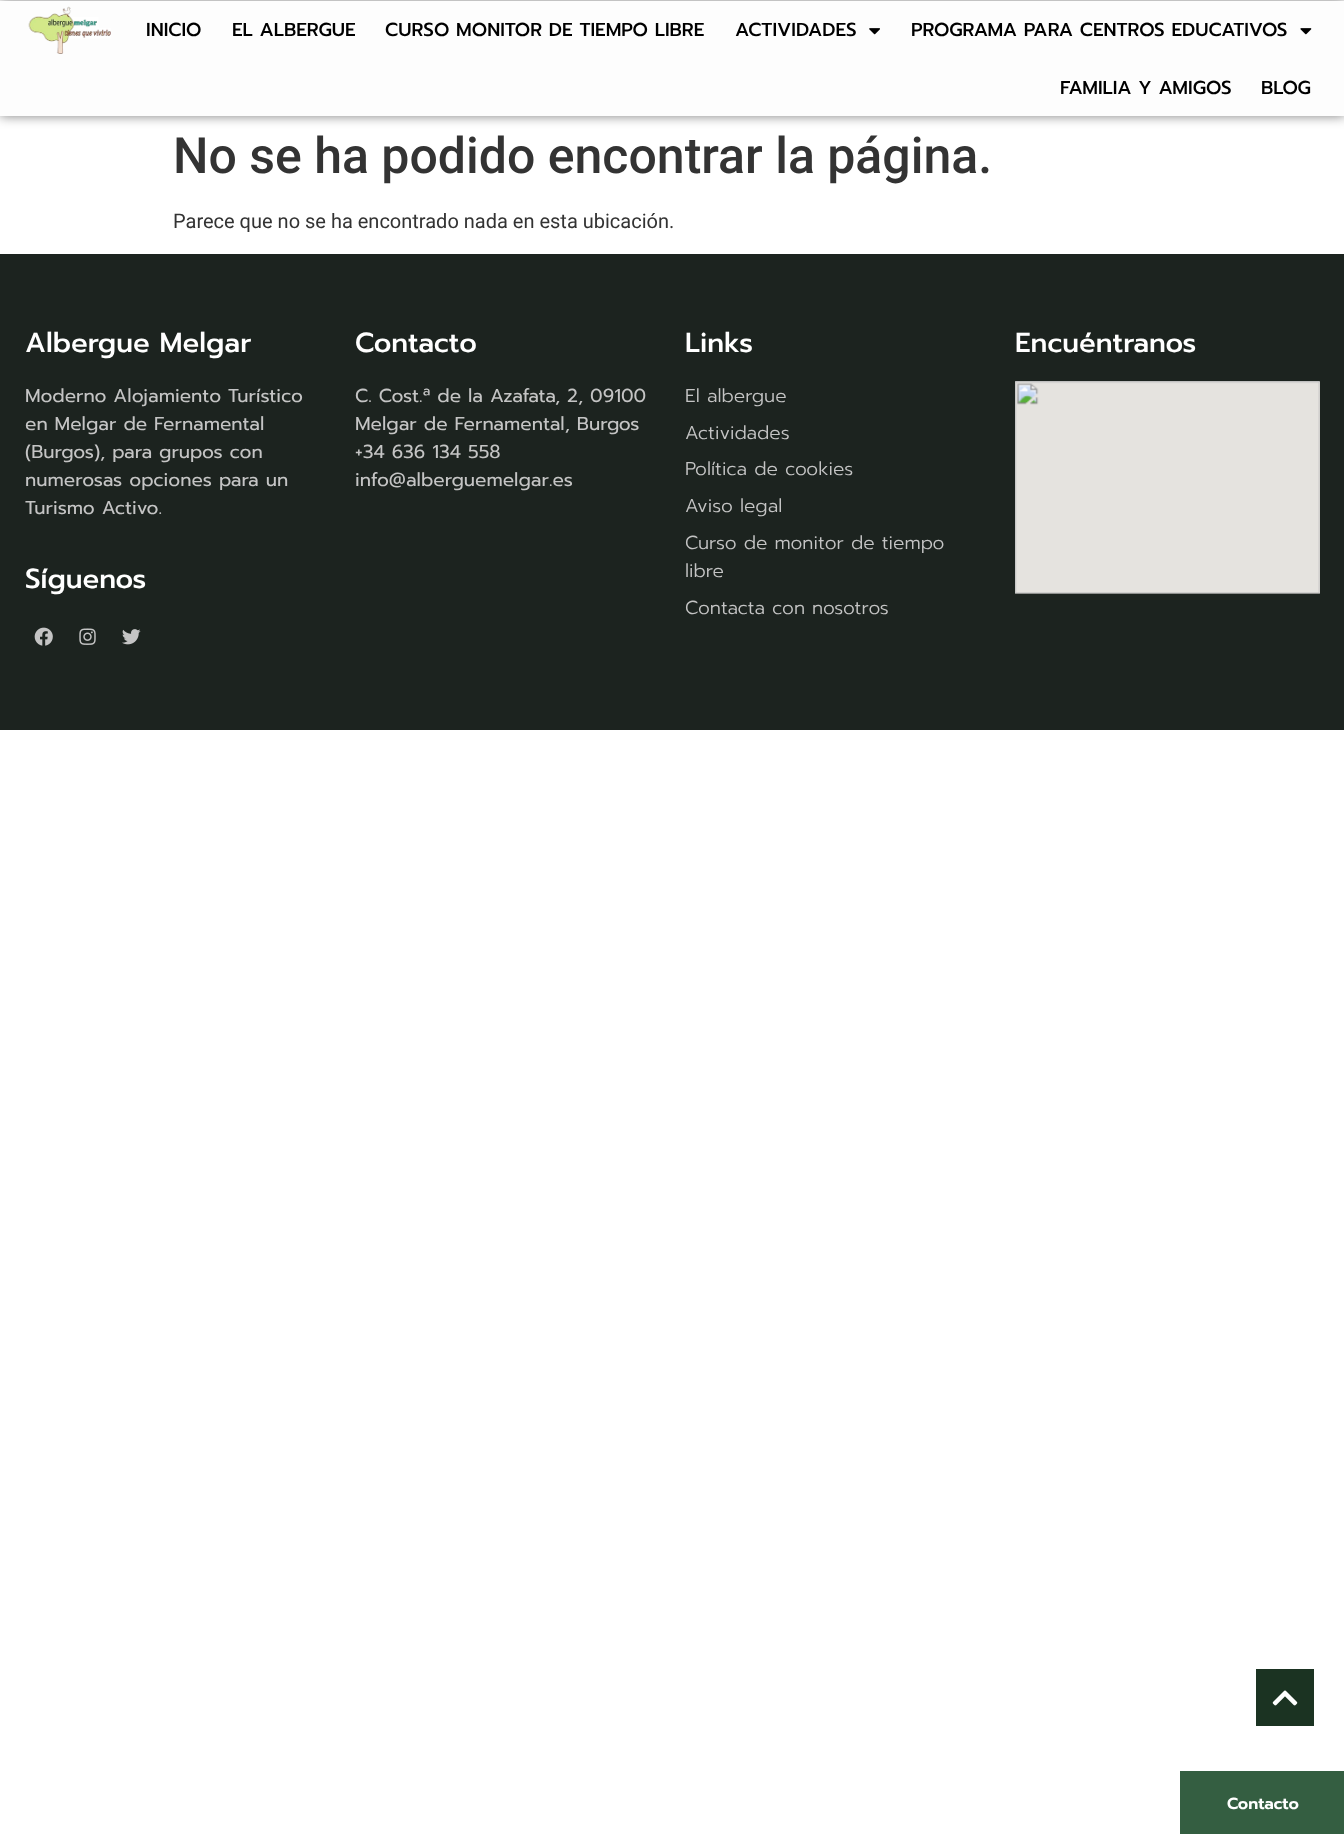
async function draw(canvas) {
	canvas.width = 1344;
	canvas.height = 1834;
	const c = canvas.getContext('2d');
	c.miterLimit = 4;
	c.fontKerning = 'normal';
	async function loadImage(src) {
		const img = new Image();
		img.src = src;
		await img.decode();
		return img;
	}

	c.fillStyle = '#fff';
	c.fillRect(0, 0, 1344, 1834);
	c.fillStyle = '#00000080';
	c.filter = 'blur(6px)';
	c.beginPath();
	c.rect(0, 1, 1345, 115);
	c.fill();
	c.filter = 'none';
	c.fillStyle = '#fdfdfd';
	c.fillRect(0, 1, 1344, 115);
	c.drawImage(await loadImage('img1.png'), 28, 6, 83, 48);
	c.font = '500 18.75px Prompt';
	c.fillStyle = '#000';
	for (const [text, x, y] of [
		['INICIO', 146, 36],
		['EL ALBERGUE', 232, 36],
		['CURSO MONITOR DE TIEMPO LIBRE', 385, 36],
		['ACTIVIDADES', 735, 36],
	]) {
		c.fillText(text, x, y);
	}
	c.drawImage(await loadImage('img2.png'), 869, 28, 11, 7);
	c.fillText('PROGRAMA PARA CENTROS EDUCATIVOS', 911, 36);
	c.drawImage(await loadImage('img3.png'), 1300, 28, 12, 7);
	c.fillText('FAMILIA Y AMIGOS', 1060, 94);
	c.fillText('BLOG', 1261, 94);
	c.font = '500 50px Roboto';
	c.fillStyle = '#333';
	c.fillText('No se ha podido encontrar la página.', 173, 173);
	c.font = '20px Roboto';
	c.fillText('Parece que no se ha encontrado nada en esta ubicación.', 173, 228);
	c.fillStyle = '#1c231f';
	c.fillRect(0, 254, 1344, 476);
	c.font = '500 27.5px Prompt';
	c.fillStyle = '#fff';
	c.fillText('Albergue Melgar', 25, 352);
	c.font = '18.75px Prompt';
	c.fillStyle = '#c4c4c4';
	for (const [text, x, y] of [
		['Moderno Alojamiento Turístico', 25, 402],
		['en Melgar de Fernamental', 25, 430],
		['(Burgos), para grupos con', 25, 458],
		['numerosas opciones para un', 25, 486],
		['Turismo Activo.', 25, 514],
	]) {
		c.fillText(text, x, y);
	}
	c.font = '500 27.5px Prompt';
	c.fillStyle = '#fff';
	c.fillText('Síguenos', 25, 588);
	c.drawImage(await loadImage('img4.png'), 34, 627, 19, 19);
	c.drawImage(await loadImage('img5.png'), 79, 628, 17, 17);
	c.drawImage(await loadImage('img6.png'), 122, 629, 19, 16);
	c.fillText('Links', 685, 352);
	c.font = '300 18.75px Prompt';
	c.fillStyle = '#c4c4c4';
	for (const [text, x, y] of [
		['El albergue', 685, 402],
		['Actividades', 685, 439],
		['Política de cookies', 685, 475],
		['Aviso legal', 685, 512],
		['Curso de monitor de tiempo', 685, 549],
		['libre', 685, 577],
		['Contacta con nosotros', 685, 614],
	]) {
		c.fillText(text, x, y);
	}
	c.font = '500 27.5px Prompt';
	c.fillStyle = '#fff';
	c.fillText('Contacto', 355, 352);
	c.font = '18.75px Prompt';
	c.fillStyle = '#c4c4c4';
	for (const [text, x, y] of [
		['C. Cost.ª de la Azafata, 2, 09100', 355, 402],
		['Melgar de Fernamental, Burgos', 355, 430],
		['+34 636 134 558', 355, 458],
		['info@alberguemelgar.es', 355, 486],
	]) {
		c.fillText(text, x, y);
	}
	c.fillStyle = '#1b3322';
	c.fillRect(1256, 1669, 58, 57);
	c.drawImage(await loadImage('img7.png'), 1272, 1690, 26, 16);
	c.fillStyle = '#345e41';
	c.fillRect(1180, 1771, 164, 63);
	c.font = '600 16.25px Prompt';
	c.fillStyle = '#fff';
	c.fillText('Contacto', 1227, 1809);
	c.font = '500 27.5px Prompt';
	c.fillText('Encuéntranos', 1015, 352);
	c.drawImage(await loadImage('img8.png'), 1015, 381, 305, 213);
}

draw(document.querySelector('canvas'));
